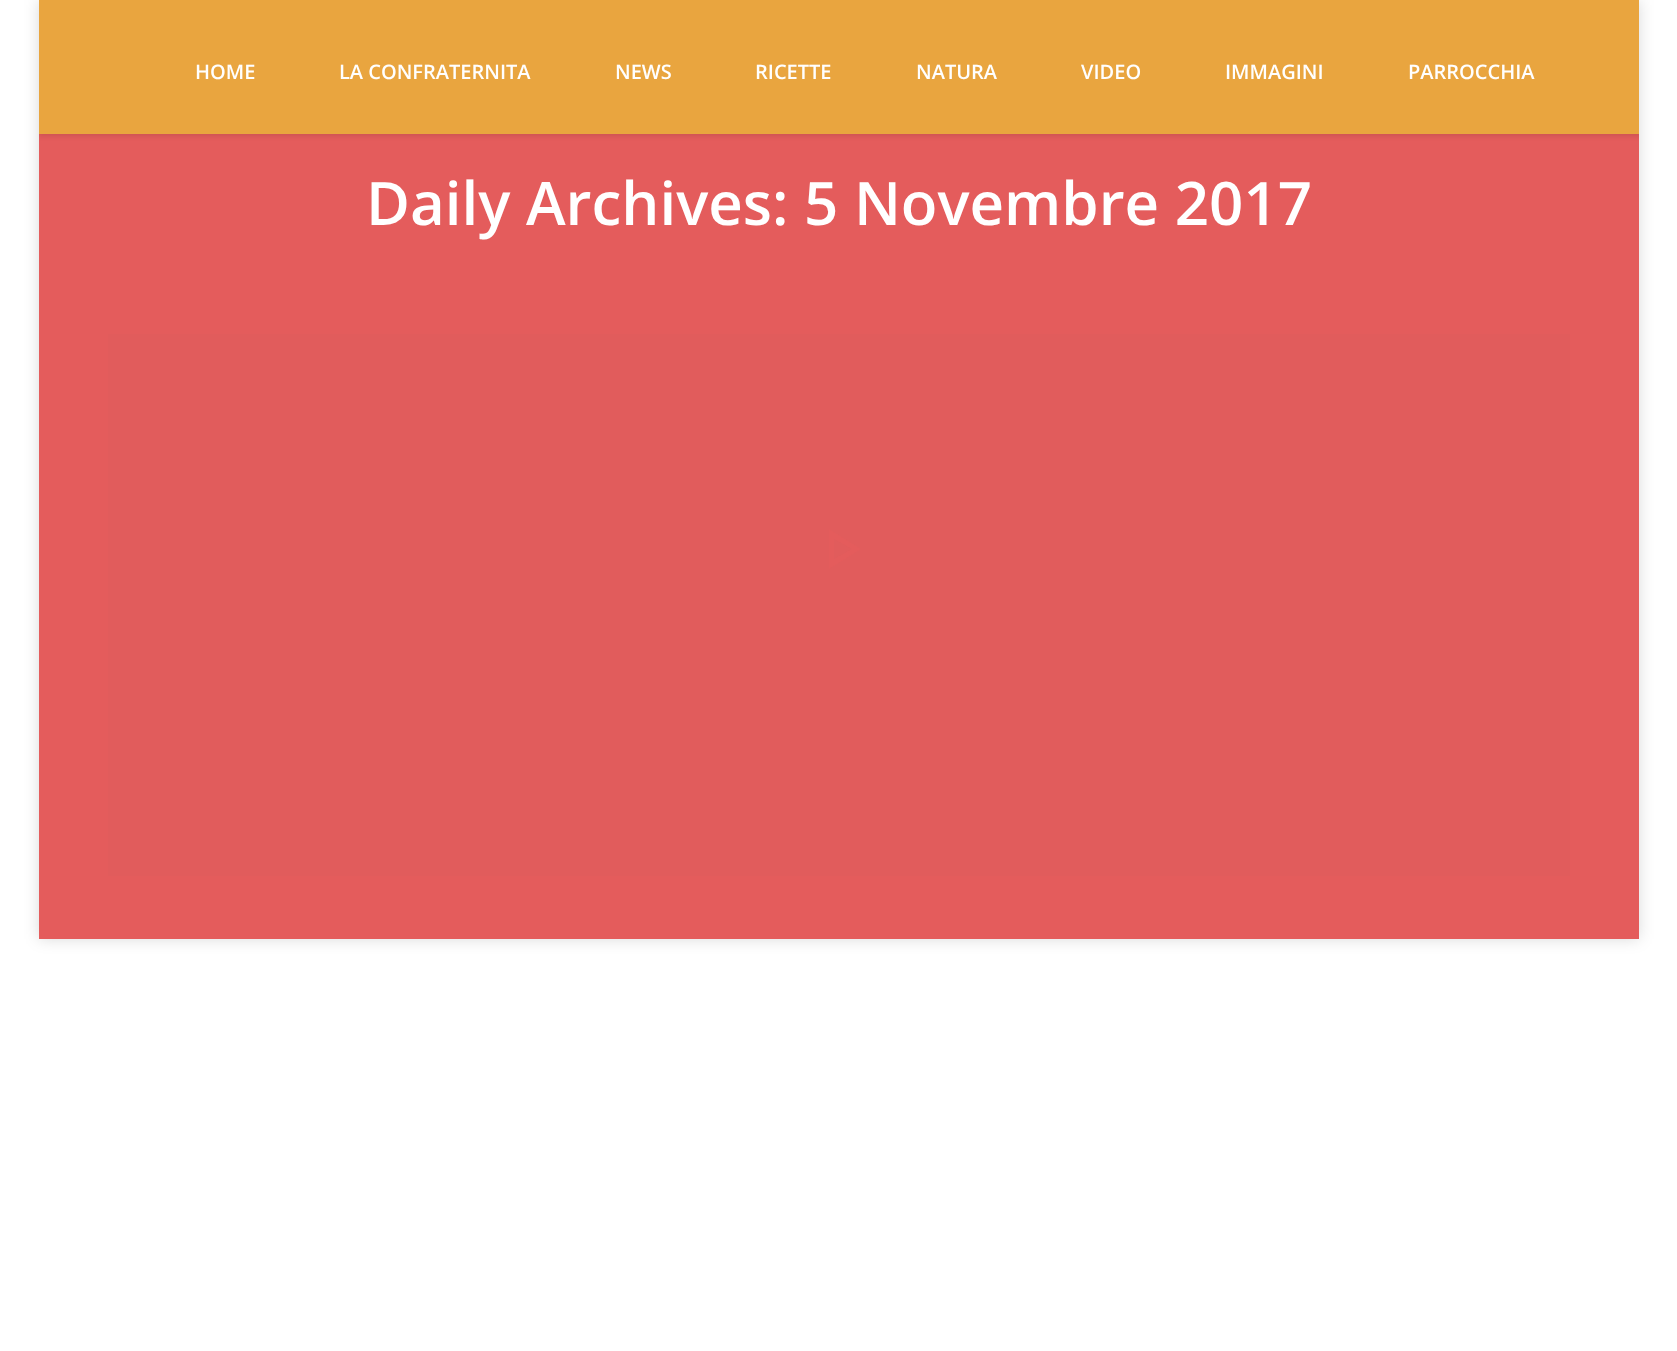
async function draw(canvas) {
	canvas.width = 1677;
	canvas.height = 1351;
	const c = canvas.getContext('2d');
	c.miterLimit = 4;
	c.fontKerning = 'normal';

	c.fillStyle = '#fff';
	c.fillRect(0, 0, 1677, 1351);
	c.save();
	c.beginPath();
	c.moveTo(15, 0);
	c.lineTo(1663, 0);
	c.lineTo(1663, 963);
	c.lineTo(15, 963);
	c.closePath();
	c.moveTo(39, 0);
	c.lineTo(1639, 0);
	c.lineTo(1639, 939);
	c.lineTo(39, 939);
	c.closePath();
	c.clip('evenodd');
	c.fillStyle = '#00000026';
	c.filter = 'blur(7.5px)';
	c.beginPath();
	c.rect(39, 0, 1600, 939);
	c.fill();
	c.filter = 'none';
	c.restore();
	c.fillStyle = '#dd3333cc';
	c.fillRect(39, 0, 1600, 939);
	c.save();
	c.beginPath();
	c.rect(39, 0, 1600, 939);
	c.clip();
	c.beginPath();
	c.moveTo(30, 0);
	c.lineTo(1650, 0);
	c.lineTo(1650, 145);
	c.lineTo(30, 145);
	c.closePath();
	c.moveTo(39, 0);
	c.lineTo(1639, 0);
	c.lineTo(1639, 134);
	c.lineTo(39, 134);
	c.closePath();
	c.clip('evenodd');
	c.fillStyle = '#0000001a';
	c.filter = 'blur(2.5px)';
	c.beginPath();
	c.rect(39, 0, 1602, 136);
	c.fill();
	c.filter = 'none';
	c.restore();
	c.fillStyle = '#eeee2280';
	c.fillRect(39, 0, 1600, 134);
	c.font = '600 20px Open Sans';
	c.fillStyle = '#fff';
	for (const [text, x, y] of [
		['HOME', 195, 79],
		['LA CONFRATERNITA', 339, 79],
		['NEWS', 615, 79],
		['RICETTE', 755, 79],
		['NATURA', 916, 79],
		['VIDEO', 1081, 79],
		['IMMAGINI', 1225, 79],
		['PARROCCHIA', 1408, 79],
	]) {
		c.fillText(text, x, y);
	}
	c.font = '600 60px Open Sans';
	c.fillText('Daily Archives: 5 Novembre 2017', 366, 225);
	c.fillStyle = '#e15c5c';
	c.fillRect(108, 334, 1462, 542);
	c.fillStyle = '#e45c5c';
	c.beginPath();
	c.moveTo(834, 539);
	c.lineTo(852, 549);
	c.lineTo(834, 559);
	c.lineTo(834, 538);
	c.moveTo(829, 529);
	c.lineTo(829, 569);
	c.lineTo(861, 549);
	c.closePath();
	c.fill();
}

draw(document.querySelector('canvas'));
